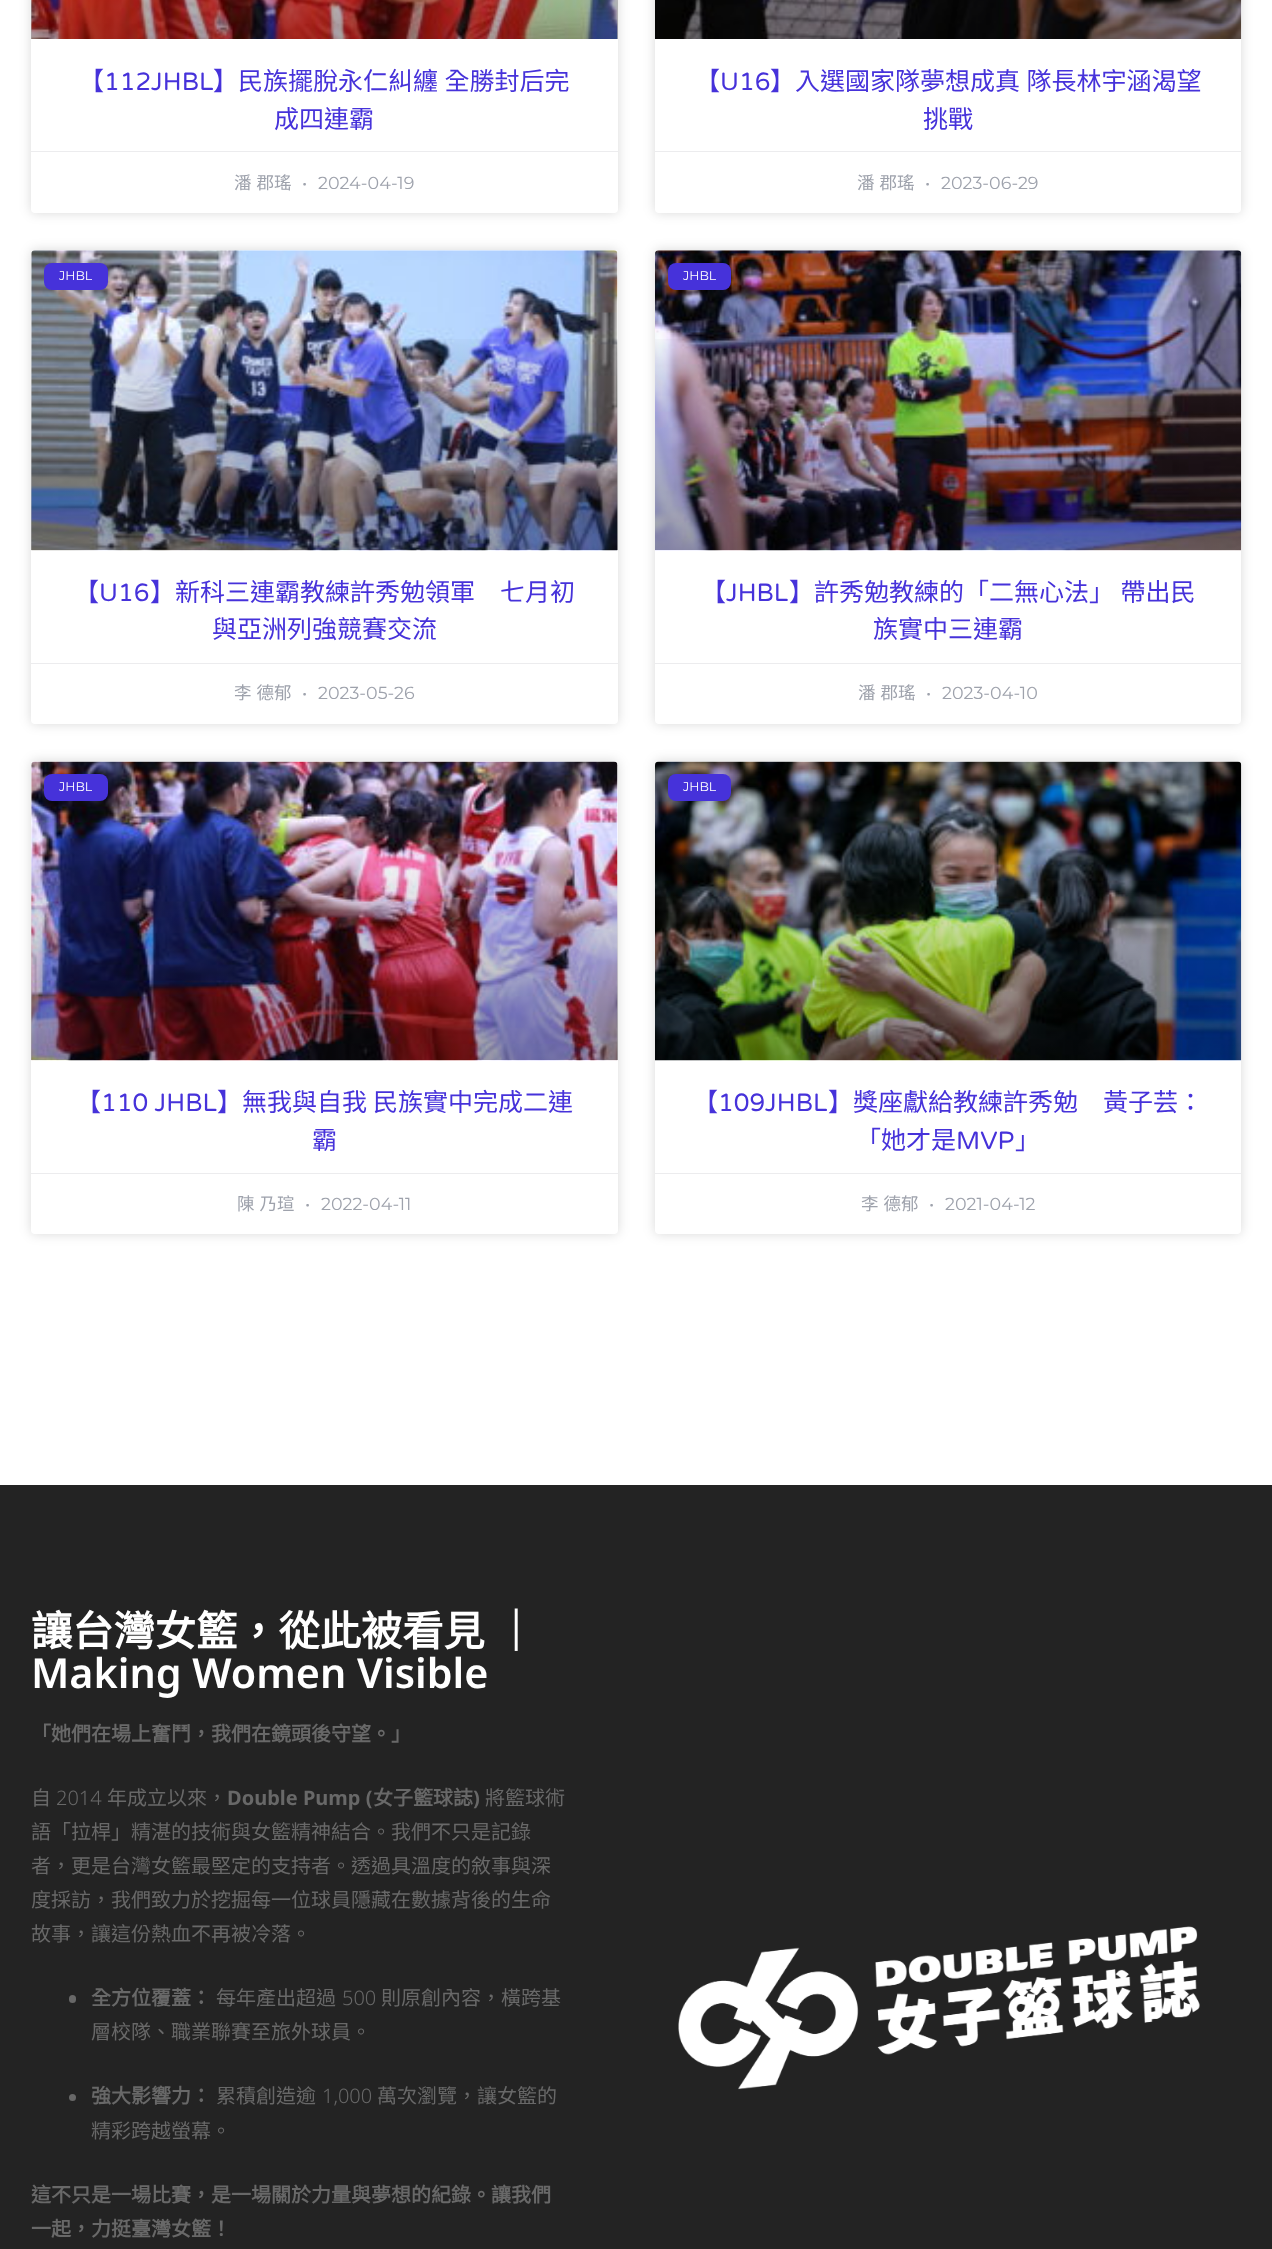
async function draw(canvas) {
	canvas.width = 1272;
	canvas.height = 2249;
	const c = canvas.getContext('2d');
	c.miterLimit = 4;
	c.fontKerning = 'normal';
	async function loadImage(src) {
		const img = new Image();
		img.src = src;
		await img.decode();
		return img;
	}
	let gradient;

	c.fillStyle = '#fff';
	c.fillRect(0, 0, 1272, 2249);
	c.fillStyle = '#00000026';
	c.filter = 'blur(6px)';
	c.beginPath();
	c.roundRect(31, -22, 587, 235, 4);
	c.fill();
	c.filter = 'none';
	c.fillStyle = '#fff';
	c.beginPath();
	c.roundRect(31, -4, 587, 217, 4);
	c.fill();
	c.drawImage(await loadImage('img1.png'), 31, 0, 587, 39);
	gradient = c.createLinearGradient(324, 39, 324, -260);
	gradient.addColorStop(0, '#00000059');
	gradient.addColorStop(0.75, '#00000000');
	c.fillStyle = gradient;
	c.fillRect(31, 0, 587, 39);
	c.font = '25px Noto Sans CJK TC';
	c.fillStyle = '#4632da';
	c.fillText('【', 79, 90);
	c.font = '25px Varela Round';
	c.fillText('112JHBL', 104, 90);
	c.wordSpacing = '1px';
	c.font = '25px Noto Sans CJK TC';
	c.fillText('】民族擺脫永仁糾纏 全勝封后完', 213, 90);
	c.wordSpacing = '0px';
	c.fillText('成四連霸', 274, 128);
	c.fillStyle = '#ececee';
	c.fillRect(31, 151, 587, 1);
	c.wordSpacing = '1px';
	c.font = '17.5px Noto Sans CJK TC';
	c.fillStyle = '#9ea2ac';
	c.fillText('潘 郡瑤', 234, 189);
	c.wordSpacing = '0px';
	c.font = '17.5px Montserrat';
	c.fillText('•', 302, 189);
	c.fillText('2024-04-19', 318, 189);
	c.fillStyle = '#00000026';
	c.filter = 'blur(6px)';
	c.beginPath();
	c.roundRect(655, -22, 586, 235, 4);
	c.fill();
	c.filter = 'none';
	c.fillStyle = '#fff';
	c.beginPath();
	c.roundRect(655, -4, 586, 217, 4);
	c.fill();
	c.drawImage(await loadImage('img2.png'), 655, 0, 587, 39);
	c.font = '25px Noto Sans CJK TC';
	c.fillStyle = '#4632da';
	c.fillText('【', 695, 90);
	c.font = '25px Varela Round';
	c.fillText('U16', 720, 90);
	c.wordSpacing = '1px';
	c.font = '25px Noto Sans CJK TC';
	c.fillText('】入選國家隊夢想成真 隊長林宇涵渴望', 770, 90);
	c.wordSpacing = '0px';
	c.fillText('挑戰', 923, 128);
	c.fillStyle = '#ececee';
	c.fillRect(655, 151, 586, 1);
	c.wordSpacing = '1px';
	c.font = '17.5px Noto Sans CJK TC';
	c.fillStyle = '#9ea2ac';
	c.fillText('潘 郡瑤', 857, 189);
	c.wordSpacing = '0px';
	c.font = '17.5px Montserrat';
	c.fillText('•', 925, 189);
	c.fillText('2023-06-29', 941, 189);
	c.fillStyle = '#00000026';
	c.filter = 'blur(6px)';
	c.beginPath();
	c.roundRect(31, 250, 587, 474, 4);
	c.fill();
	c.filter = 'none';
	c.fillStyle = '#fff';
	c.beginPath();
	c.roundRect(31, 250, 587, 474, 4);
	c.fill();
	c.drawImage(await loadImage('img3.png'), 31, 250, 587, 301);
	gradient = c.createLinearGradient(324, 550, 324, 250);
	gradient.addColorStop(0, '#00000059');
	gradient.addColorStop(0.75, '#00000000');
	c.fillStyle = gradient;
	c.fillRect(31, 339, 587, 211);
	c.fillStyle = '#4632da';
	c.beginPath();
	c.roundRect(44, 263, 64, 27, 8);
	c.fill();
	c.font = '12.5px Montserrat';
	c.fillStyle = '#fff';
	c.fillText('JHBL', 59, 280);
	c.font = '25px Noto Sans CJK TC';
	c.fillStyle = '#4632da';
	c.fillText('【', 74, 601);
	c.font = '25px Varela Round';
	c.fillText('U16', 99, 601);
	c.font = '25px Noto Sans CJK TC';
	c.fillText('】新科三連霸教練許秀勉領軍　七月初', 150, 601);
	c.fillText('與亞洲列強競賽交流', 212, 638);
	c.fillStyle = '#ececee';
	c.fillRect(31, 663, 587, 1);
	c.wordSpacing = '1px';
	c.font = '17.5px Noto Sans CJK TC';
	c.fillStyle = '#9ea2ac';
	c.fillText('李 德郁', 234, 699);
	c.wordSpacing = '0px';
	c.font = '17.5px Montserrat';
	c.fillText('•', 302, 699);
	c.fillText('2023-05-26', 318, 699);
	c.fillStyle = '#00000026';
	c.filter = 'blur(6px)';
	c.beginPath();
	c.roundRect(655, 250, 586, 474, 4);
	c.fill();
	c.filter = 'none';
	c.fillStyle = '#fff';
	c.beginPath();
	c.roundRect(655, 250, 586, 474, 4);
	c.fill();
	c.drawImage(await loadImage('img4.png'), 655, 250, 587, 301);
	gradient = c.createLinearGradient(948, 550, 948, 250);
	gradient.addColorStop(0, '#00000059');
	gradient.addColorStop(0.75, '#00000000');
	c.fillStyle = gradient;
	c.fillRect(655, 339, 586, 211);
	c.fillStyle = '#4632da';
	c.beginPath();
	c.roundRect(668, 263, 63, 27, 8);
	c.fill();
	c.font = '12.5px Montserrat';
	c.fillStyle = '#fff';
	c.fillText('JHBL', 683, 280);
	c.font = '25px Noto Sans CJK TC';
	c.fillStyle = '#4632da';
	c.fillText('【', 701, 601);
	c.font = '25px Varela Round';
	c.fillText('JHBL', 726, 601);
	c.wordSpacing = '1px';
	c.font = '25px Noto Sans CJK TC';
	c.fillText('】許秀勉教練的「二無心法」 帶出民', 789, 601);
	c.wordSpacing = '0px';
	c.fillText('族實中三連霸', 873, 638);
	c.fillStyle = '#ececee';
	c.fillRect(655, 663, 586, 1);
	c.wordSpacing = '1px';
	c.font = '17.5px Noto Sans CJK TC';
	c.fillStyle = '#9ea2ac';
	c.fillText('潘 郡瑤', 858, 699);
	c.wordSpacing = '0px';
	c.font = '17.5px Montserrat';
	c.fillText('•', 926, 699);
	c.fillText('2023-04-10', 942, 699);
	c.fillStyle = '#00000026';
	c.filter = 'blur(6px)';
	c.beginPath();
	c.roundRect(31, 761, 587, 473, 4);
	c.fill();
	c.filter = 'none';
	c.fillStyle = '#fff';
	c.beginPath();
	c.roundRect(31, 761, 587, 473, 4);
	c.fill();
	c.drawImage(await loadImage('img5.png'), 31, 761, 587, 300);
	gradient = c.createLinearGradient(324, 1060, 324, 761);
	gradient.addColorStop(0, '#00000059');
	gradient.addColorStop(0.75, '#00000000');
	c.fillStyle = gradient;
	c.fillRect(31, 850, 587, 210);
	c.fillStyle = '#4632da';
	c.beginPath();
	c.roundRect(44, 774, 64, 27, 8);
	c.fill();
	c.font = '12.5px Montserrat';
	c.fillStyle = '#fff';
	c.fillText('JHBL', 59, 791);
	c.font = '25px Noto Sans CJK TC';
	c.fillStyle = '#4632da';
	c.fillText('【', 76, 1111);
	c.font = '25px Varela Round';
	c.fillText('110 JHBL', 101, 1111);
	c.font = '25px Noto Sans CJK TC';
	for (const [text, x, y] of [
		['】無我與自我', 217, 1111],
		['民族實中完成二連', 373, 1111],
		['霸', 312, 1149],
	]) {
		c.fillText(text, x, y);
	}
	c.fillStyle = '#ececee';
	c.fillRect(31, 1173, 587, 1);
	c.wordSpacing = '1px';
	c.font = '17.5px Noto Sans CJK TC';
	c.fillStyle = '#9ea2ac';
	c.fillText('陳 乃瑄', 237, 1210);
	c.wordSpacing = '0px';
	c.font = '17.5px Montserrat';
	c.fillText('•', 305, 1210);
	c.fillText('2022-04-11', 321, 1210);
	c.fillStyle = '#00000026';
	c.filter = 'blur(6px)';
	c.beginPath();
	c.roundRect(655, 761, 586, 473, 4);
	c.fill();
	c.filter = 'none';
	c.fillStyle = '#fff';
	c.beginPath();
	c.roundRect(655, 761, 586, 473, 4);
	c.fill();
	c.drawImage(await loadImage('img6.png'), 655, 761, 587, 300);
	gradient = c.createLinearGradient(948, 1060, 948, 761);
	gradient.addColorStop(0, '#00000059');
	gradient.addColorStop(0.75, '#00000000');
	c.fillStyle = gradient;
	c.fillRect(655, 850, 586, 210);
	c.fillStyle = '#4632da';
	c.beginPath();
	c.roundRect(668, 774, 63, 27, 8);
	c.fill();
	c.font = '12.5px Montserrat';
	c.fillStyle = '#fff';
	c.fillText('JHBL', 683, 791);
	c.font = '25px Noto Sans CJK TC';
	c.fillStyle = '#4632da';
	c.fillText('【', 693, 1111);
	c.font = '25px Varela Round';
	c.fillText('109JHBL', 718, 1111);
	c.font = '25px Noto Sans CJK TC';
	c.fillText('】獎座獻給教練許秀勉　黃子芸：', 828, 1111);
	c.fillText('「她才是', 856, 1149);
	c.font = '25px Varela Round';
	c.fillText('MVP', 956, 1149);
	c.font = '25px Noto Sans CJK TC';
	c.fillText('」', 1015, 1149);
	c.fillStyle = '#ececee';
	c.fillRect(655, 1173, 586, 1);
	c.wordSpacing = '1px';
	c.font = '17.5px Noto Sans CJK TC';
	c.fillStyle = '#9ea2ac';
	c.fillText('李 德郁', 861, 1210);
	c.wordSpacing = '0px';
	c.font = '17.5px Montserrat';
	c.fillText('•', 929, 1210);
	c.fillText('2021-04-12', 945, 1210);
	c.fillStyle = '#232323';
	c.fillRect(0, 1485, 1272, 764);
	c.wordSpacing = '1px';
	c.font = 'bold 41.25px Noto Sans CJK TC';
	c.fillStyle = '#fff';
	c.fillText('讓台灣女籃，從此被看見 ｜', 31, 1646);
	c.wordSpacing = '0px';
	c.font = '600 41.25px Noto Sans';
	c.fillText('Making Women Visible', 31, 1688);
	c.font = 'bold 20px Noto Sans CJK TC';
	c.fillStyle = '#686868';
	c.fillText('「她們在場上奮鬥，我們在鏡頭後守望。」', 31, 1741);
	c.font = '20px Noto Sans CJK TC';
	c.fillText('自', 31, 1805);
	c.font = '300 20px Noto Sans';
	c.fillText('2014', 56, 1805);
	c.font = '20px Noto Sans CJK TC';
	c.fillText('年成立以來，', 107, 1805);
	c.font = 'bold 20px Noto Sans';
	c.fillText('Double Pump (', 227, 1805);
	c.font = 'bold 20px Noto Sans CJK TC';
	c.fillText('女子籃球誌', 373, 1805);
	c.font = 'bold 20px Noto Sans';
	c.fillText(')', 473, 1805);
	c.font = '20px Noto Sans CJK TC';
	for (const [text, x, y] of [
		['將籃球術', 485, 1805],
		['語「拉桿」精湛的技術與女籃精神結合。我們不只是記錄', 31, 1839],
		['者，更是台灣女籃最堅定的支持者。透過具溫度的敘事與深', 31, 1873],
		['度採訪，我們致力於挖掘每一位球員隱藏在數據背後的生命', 31, 1907],
		['故事，讓這份熱血不再被冷落。', 31, 1941],
	]) {
		c.fillText(text, x, y);
	}
	c.beginPath();
	c.roundRect(69, 1995, 7, 8, 3.5);
	c.fill();
	c.font = 'bold 20px Noto Sans CJK TC';
	c.fillText('全方位覆蓋：', 91, 2005);
	c.font = '20px Noto Sans CJK TC';
	c.fillText('每年產出超過', 216, 2005);
	c.font = '300 20px Noto Sans';
	c.fillText('500', 342, 2005);
	c.font = '20px Noto Sans CJK TC';
	c.fillText('則原創內容，橫跨基', 381, 2005);
	c.fillText('層校隊、職業聯賽至旅外球員。', 91, 2039);
	c.beginPath();
	c.arc(72.5, 2097.5, 3.5, 0, 2 * Math.PI);
	c.fill();
	c.font = 'bold 20px Noto Sans CJK TC';
	c.fillText('強大影響力：', 91, 2103);
	c.font = '20px Noto Sans CJK TC';
	c.fillText('累積創造逾', 216, 2103);
	c.font = '300 20px Noto Sans';
	c.fillText('1,000', 322, 2103);
	c.font = '20px Noto Sans CJK TC';
	c.fillText('萬次瀏覽，讓女籃的', 377, 2103);
	c.fillText('精彩跨越螢幕。', 91, 2138);
	c.font = 'bold 20px Noto Sans CJK TC';
	c.fillText('這不只是一場比賽，是一場關於力量與夢想的紀錄。讓我們', 31, 2202);
	c.fillText('一起，力挺臺灣女籃！', 31, 2236);
	c.drawImage(await loadImage('img7.png'), 678, 1926, 522, 164);
}

draw(document.querySelector('canvas'));
